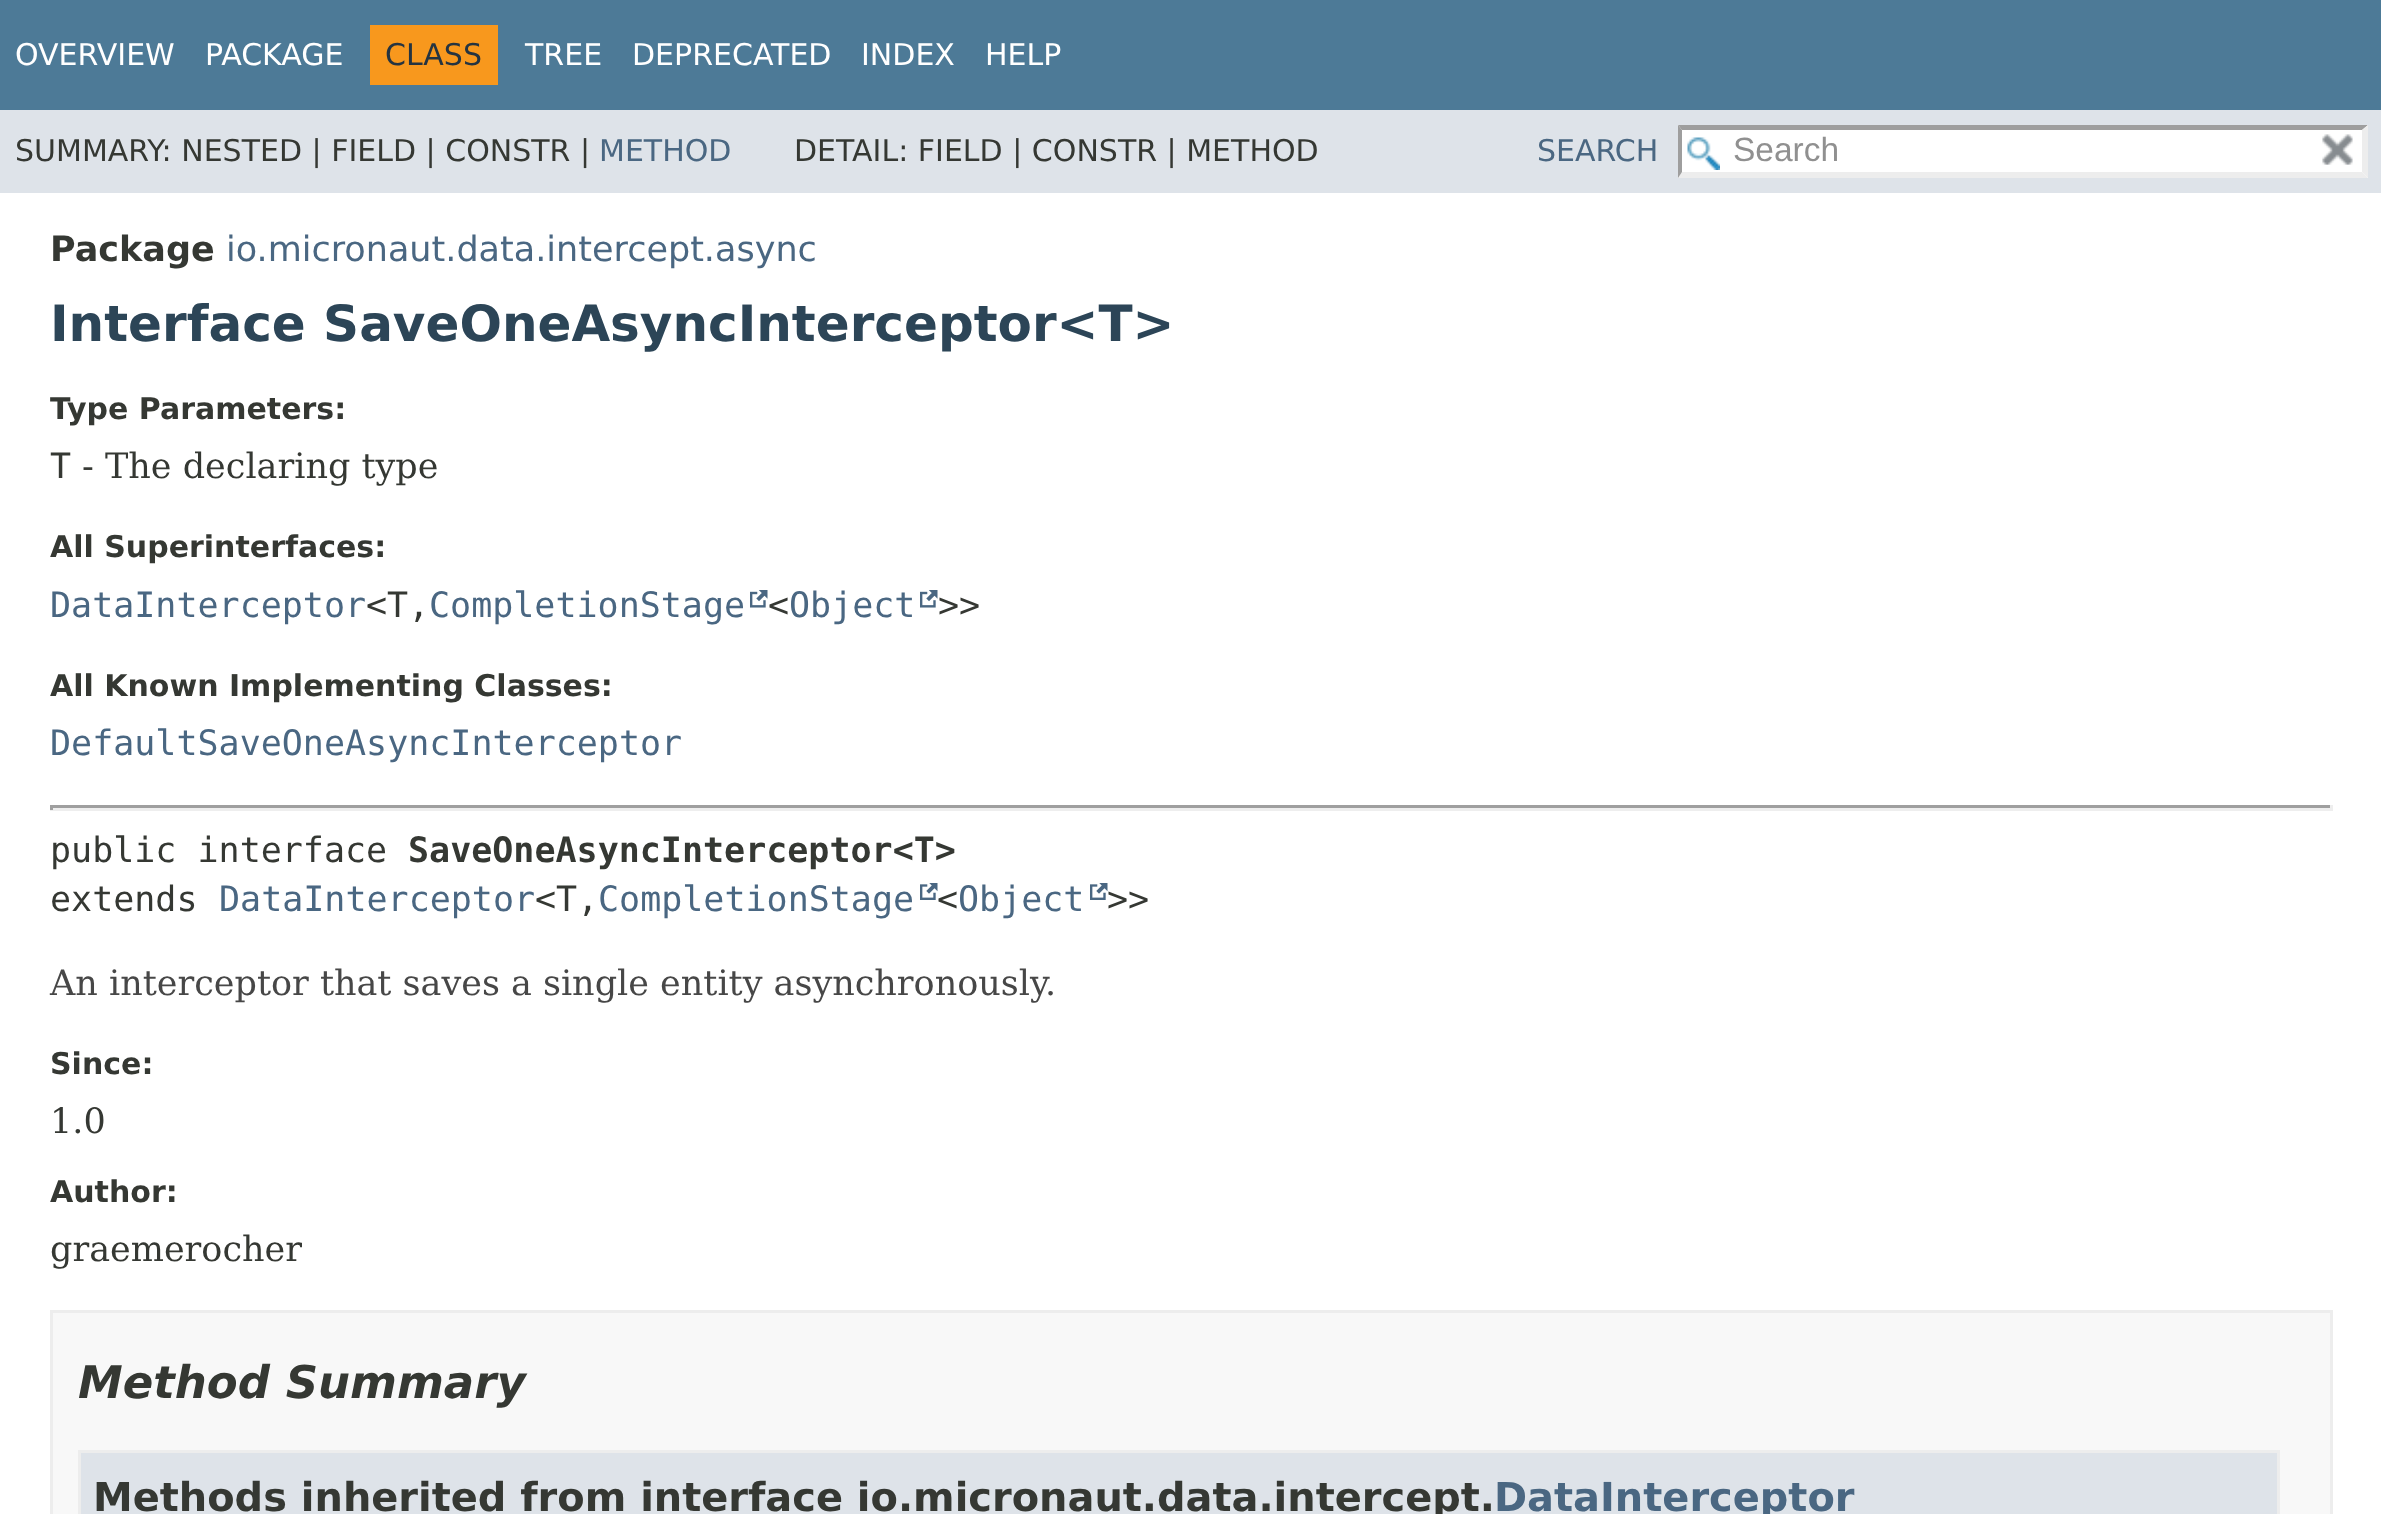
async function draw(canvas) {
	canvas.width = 2381;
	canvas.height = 1514;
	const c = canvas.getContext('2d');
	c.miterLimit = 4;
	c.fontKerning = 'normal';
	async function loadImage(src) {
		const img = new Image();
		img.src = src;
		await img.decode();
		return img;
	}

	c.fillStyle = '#fff';
	c.fillRect(0, 0, 2381, 1514);
	c.fillStyle = '#4d7a97';
	c.fillRect(0, 0, 2381, 110);
	c.font = '30px DejaVu Sans';
	c.fillStyle = '#fff';
	c.fillText('OVERVIEW', 15, 65);
	c.fillText('PACKAGE', 205, 65);
	c.fillStyle = '#f8981d';
	c.fillRect(370, 25, 128, 60);
	c.fillStyle = '#253441';
	c.fillText('CLASS', 385, 65);
	c.fillStyle = '#fff';
	for (const [text, x, y] of [
		['TREE', 525, 65],
		['DEPRECATED', 632, 65],
		['INDEX', 861, 65],
		['HELP', 985, 65],
	]) {
		c.fillText(text, x, y);
	}
	c.fillStyle = '#dee3e9';
	c.fillRect(0, 110, 2381, 83);
	c.fillStyle = '#353833';
	c.fillText('SUMMARY: NESTED | FIELD | CONSTR |', 15, 161);
	c.fillStyle = '#4a6782';
	c.fillText('METHOD', 599, 161);
	c.fillStyle = '#353833';
	c.fillText('DETAIL: FIELD | CONSTR | METHOD', 794, 161);
	c.fillStyle = '#4a6782';
	c.fillText('SEARCH', 1537, 161);
	c.fillStyle = '#fff';
	c.fillRect(1678, 125, 690, 53);
	c.drawImage(await loadImage('img1.png'), 1687, 137, 33, 33);
	c.fillStyle = '#9e9e9e';
	c.beginPath();
	c.moveTo(1678, 125);
	c.lineTo(2368, 125);
	c.lineTo(2362, 130);
	c.lineTo(1682, 130);
	c.closePath();
	c.fill();
	c.fillStyle = '#ededed';
	c.beginPath();
	c.moveTo(2368, 125);
	c.lineTo(2368, 178);
	c.lineTo(2362, 172);
	c.lineTo(2362, 130);
	c.closePath();
	c.fill();
	c.beginPath();
	c.moveTo(2368, 178);
	c.lineTo(1678, 178);
	c.lineTo(1682, 172);
	c.lineTo(2362, 172);
	c.closePath();
	c.fill();
	c.fillStyle = '#9e9e9e';
	c.beginPath();
	c.moveTo(1678, 178);
	c.lineTo(1678, 125);
	c.lineTo(1682, 130);
	c.lineTo(1682, 172);
	c.closePath();
	c.fill();
	c.font = '33.5px Liberation Sans';
	c.fillStyle = '#909090';
	c.fillText('Search', 1733, 161);
	c.drawImage(await loadImage('img2.png'), 2322, 134, 31, 31);
	c.font = 'bold 35px DejaVu Sans';
	c.fillStyle = '#353833';
	c.fillText('Package', 50, 261);
	c.font = '35px DejaVu Sans';
	c.fillStyle = '#4a6782';
	c.fillText('io.micronaut.data.intercept.async', 226, 261);
	c.font = 'bold 50px DejaVu Sans';
	c.fillStyle = '#2c4557';
	c.fillText('Interface SaveOneAsyncInterceptor<T>', 50, 341);
	c.font = 'bold 30px DejaVu Sans';
	c.fillStyle = '#353833';
	c.fillText('Type Parameters:', 50, 419);
	c.font = '35px DejaVu Sans Mono';
	c.fillText('T', 50, 478);
	c.font = '35px DejaVu Serif';
	c.fillText('- The declaring type', 82, 478);
	c.font = 'bold 30px DejaVu Sans';
	c.fillText('All Superinterfaces:', 50, 557);
	c.font = '35px DejaVu Sans Mono';
	c.fillStyle = '#4a6782';
	c.fillText('DataInterceptor', 50, 617);
	c.fillStyle = '#353833';
	c.fillText('<T,', 366, 617);
	c.fillStyle = '#4a6782';
	c.fillText('CompletionStage', 429, 617);
	c.drawImage(await loadImage('img3.png'), 750, 590, 18, 18);
	c.fillStyle = '#353833';
	c.fillText('<', 768, 617);
	c.fillStyle = '#4a6782';
	c.fillText('Object', 789, 617);
	c.drawImage(await loadImage('img3.png'), 920, 590, 18, 18);
	c.fillStyle = '#353833';
	c.fillText('>>', 938, 617);
	c.font = 'bold 30px DejaVu Sans';
	c.fillText('All Known Implementing Classes:', 50, 696);
	c.font = '35px DejaVu Sans Mono';
	c.fillStyle = '#4a6782';
	c.fillText('DefaultSaveOneAsyncInterceptor', 50, 755);
	for (const [x, y, w, h, color] of [
		[50, 805, 2283, 3, '#9f9f9f'],
		[2330, 805, 3, 5, '#eee'],
		[50, 808, 2283, 3, '#eee'],
		[50, 805, 3, 5, '#9f9f9f'],
	]) {
		c.fillStyle = color;
		c.fillRect(x, y, w, h);
	}
	c.fillStyle = '#353833';
	c.fillText('public interface', 50, 862);
	c.font = 'bold 35px DejaVu Sans Mono';
	c.fillText('SaveOneAsyncInterceptor<T>', 408, 862);
	c.font = '35px DejaVu Sans Mono';
	c.fillText('extends', 50, 911);
	c.fillStyle = '#4a6782';
	c.fillText('DataInterceptor', 219, 911);
	c.fillStyle = '#353833';
	c.fillText('<T,', 535, 911);
	c.fillStyle = '#4a6782';
	c.fillText('CompletionStage', 598, 911);
	c.drawImage(await loadImage('img4.png'), 920, 883, 18, 17);
	c.fillStyle = '#353833';
	c.fillText('<', 937, 911);
	c.fillStyle = '#4a6782';
	c.fillText('Object', 958, 911);
	c.drawImage(await loadImage('img4.png'), 1090, 883, 18, 17);
	c.fillStyle = '#353833';
	c.fillText('>>', 1107, 911);
	c.font = '35px DejaVu Serif';
	c.fillStyle = '#474747';
	c.fillText('An interceptor that saves a single entity asynchronously.', 50, 995);
	c.font = 'bold 30px DejaVu Sans';
	c.fillStyle = '#353833';
	c.fillText('Since:', 50, 1074);
	c.font = '35px DejaVu Serif';
	c.fillText('1.0', 50, 1133);
	c.font = 'bold 30px DejaVu Sans';
	c.fillText('Author:', 50, 1202);
	c.font = '35px DejaVu Serif';
	c.fillText('graemerocher', 50, 1261);
	c.fillStyle = '#f8f8f8';
	c.beginPath();
	c.rect(51.5, 1311.5, 2280, 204);
	c.fill();
	c.strokeStyle = '#ededed';
	c.lineWidth = 3;
	c.stroke();
	c.font = 'italic bold 45px DejaVu Sans';
	c.fillStyle = '#353833';
	c.fillText('Method Summary', 78, 1398);
	c.fillStyle = '#dee3e9';
	c.beginPath();
	c.rect(79.5, 1451.5, 2199, 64);
	c.fill();
	c.stroke();
	c.font = 'bold 39.9px DejaVu Sans';
	c.fillStyle = '#353833';
	c.fillText('Methods inherited from interface io.micronaut.data.intercept.', 93, 1511);
	c.fillStyle = '#4a6782';
	c.fillText('DataInterceptor', 1494, 1511);
}

draw(document.querySelector('canvas'));
